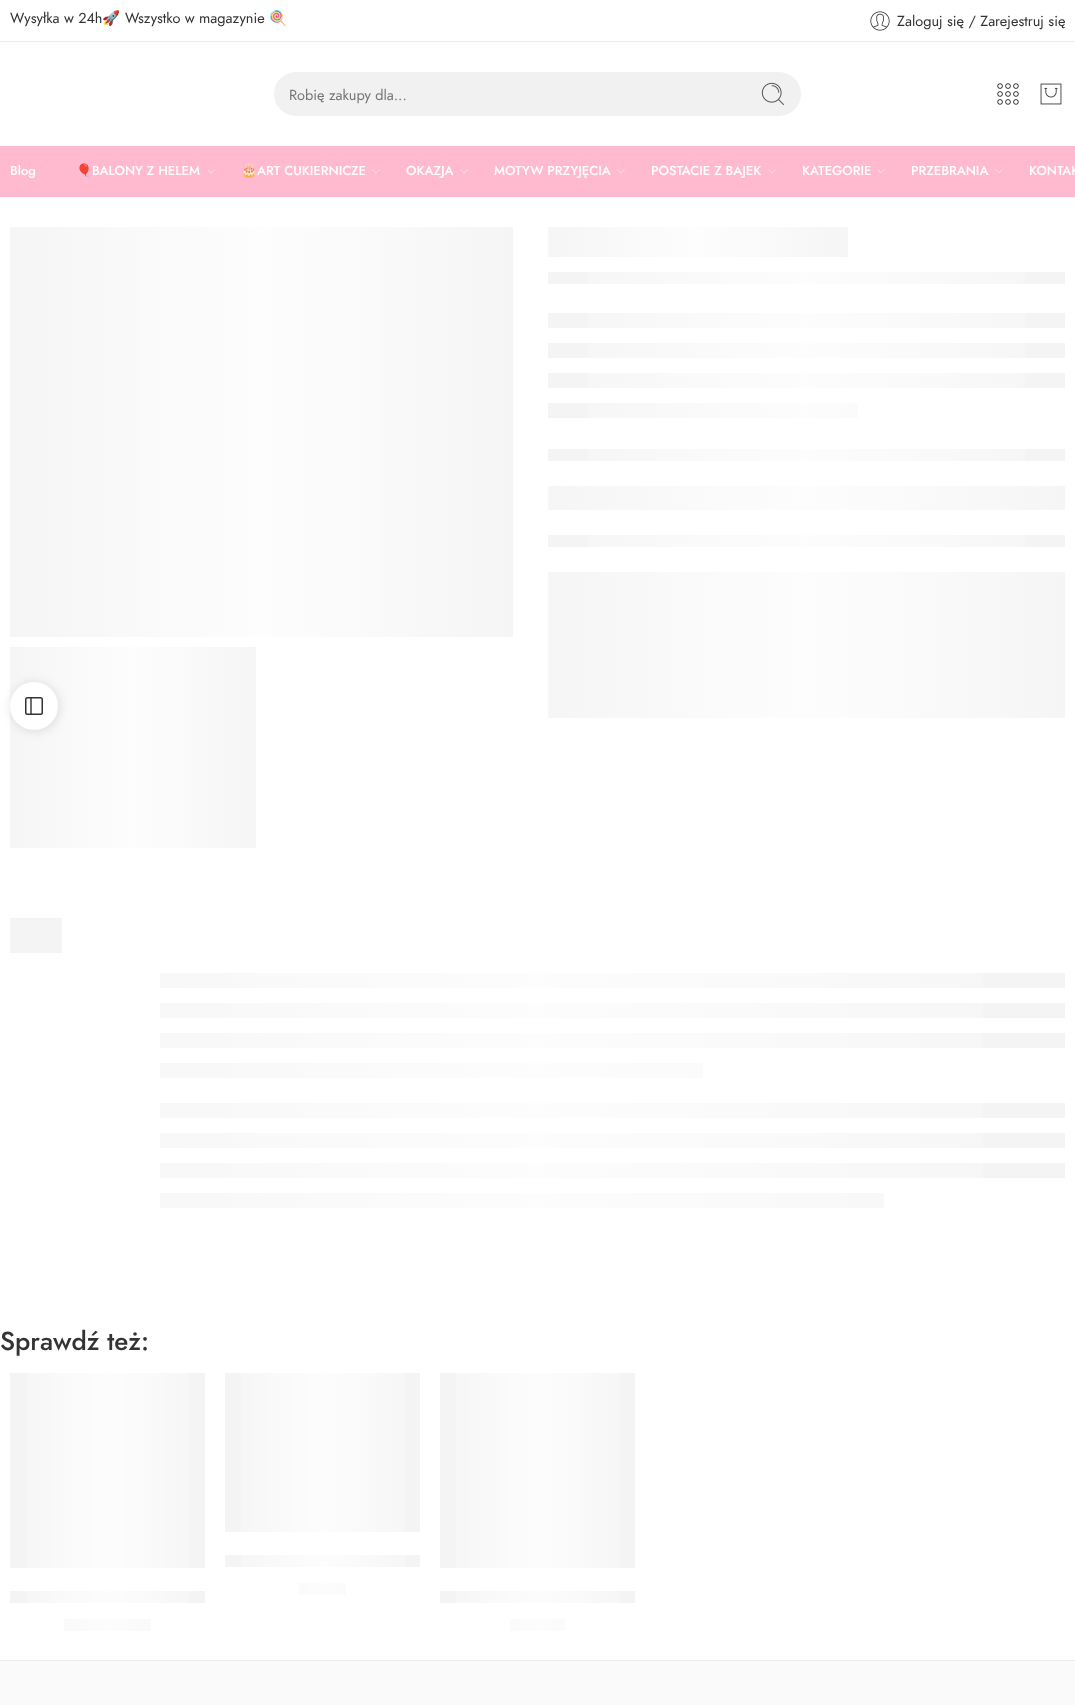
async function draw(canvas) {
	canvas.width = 1075;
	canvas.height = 1705;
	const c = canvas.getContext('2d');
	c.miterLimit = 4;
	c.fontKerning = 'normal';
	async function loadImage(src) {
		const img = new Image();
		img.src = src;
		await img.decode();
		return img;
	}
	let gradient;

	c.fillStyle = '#fff';
	c.fillRect(0, 0, 1075, 1705);
	c.fillStyle = '#ececec';
	c.fillRect(0, 41, 1075, 1);
	c.font = '14.5px Jost';
	c.fillStyle = '#333';
	c.fillText('Wysyłka w 24h', 10, 23);
	c.font = '14.5px Noto Color Emoji';
	c.fillText('🚀', 102, 23);
	c.font = '14.5px Jost';
	c.fillText('Wszystko w magazynie', 125, 23);
	c.font = '14.5px Noto Color Emoji';
	c.fillText('🍭', 269, 23);
	c.drawImage(await loadImage('img1.png'), 870, 11, 20, 20);
	c.font = '14.5px Jost';
	c.fillText('Zaloguj się / Zarejestruj się', 897, 26);
	c.fillStyle = '#f1f1f1';
	c.beginPath();
	c.roundRect(274, 72, 527, 44, 22);
	c.fill();
	c.fillStyle = '#757575';
	c.fillText('Robię zakupy dla...', 289, 100);
	c.drawImage(await loadImage('img2.png'), 761, 82, 23, 24);
	c.drawImage(await loadImage('img3.png'), 997, 83, 22, 22);
	c.drawImage(await loadImage('img4.png'), 1040, 83, 22, 22);
	c.fillStyle = '#ffbacf';
	c.fillRect(0, 146, 1075, 51);
	c.font = '500 13px Jost';
	c.fillStyle = '#fff';
	c.fillText('Blog', 10, 175);
	c.font = '13px "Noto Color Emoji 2"';
	c.fillText('🎈', 76, 175);
	c.font = '500 13px Jost';
	c.fillText('BALONY Z HELEM', 92, 175);
	c.drawImage(await loadImage('img5.png'), 207, 169, 8, 5);
	c.font = '13px "Noto Color Emoji 2"';
	c.fillText('🎂', 241, 175);
	c.font = '500 13px Jost';
	c.fillText('ART CUKIERNICZE', 257, 175);
	c.drawImage(await loadImage('img5.png'), 372, 169, 8, 5);
	c.fillText('OKAZJA', 406, 175);
	c.drawImage(await loadImage('img5.png'), 460, 169, 8, 5);
	c.fillText('MOTYW PRZYJĘCIA', 494, 175);
	c.drawImage(await loadImage('img5.png'), 617, 169, 8, 5);
	c.fillText('POSTACIE Z BAJEK', 651, 175);
	c.drawImage(await loadImage('img5.png'), 768, 169, 8, 5);
	c.fillText('KATEGORIE', 802, 175);
	c.drawImage(await loadImage('img5.png'), 877, 169, 8, 5);
	c.fillText('PRZEBRANIA', 911, 175);
	c.drawImage(await loadImage('img5.png'), 995, 169, 8, 5);
	c.fillText('KONTAK', 1029, 175);
	gradient = c.createLinearGradient(-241, 432, 764, 432);
	gradient.addColorStop(0.2, '#f4f4f4');
	gradient.addColorStop(0.5, '#fdfdfd');
	gradient.addColorStop(0.8, '#f4f4f4');
	c.fillStyle = gradient;
	c.fillRect(10, 227, 503, 410);
	gradient = c.createLinearGradient(-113, 748, 379, 748);
	gradient.addColorStop(0.2, '#f4f4f4');
	gradient.addColorStop(0.5, '#fdfdfd');
	gradient.addColorStop(0.8, '#f4f4f4');
	c.fillStyle = gradient;
	c.fillRect(10, 647, 246, 201);
	gradient = c.createLinearGradient(398, 242, 998, 242);
	gradient.addColorStop(0.2, '#f4f4f4');
	gradient.addColorStop(0.5, '#fdfdfd');
	gradient.addColorStop(0.8, '#f4f4f4');
	c.fillStyle = gradient;
	c.fillRect(548, 227, 300, 30);
	c.fillStyle = '#f4f4f4';
	c.fillRect(548, 272, 517, 12);
	gradient = c.createLinearGradient(289, 278, 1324, 277);
	gradient.addColorStop(0.2, '#ffffff00');
	gradient.addColorStop(0.5, '#ffffffcc');
	gradient.addColorStop(0.8, '#ffffff00');
	c.fillStyle = gradient;
	c.fillRect(588, 272, 437, 12);
	for (const [x, y, w, h, color] of [
		[548, 403, 310, 15, '#f4f4f4'],
		[548, 373, 517, 15, '#f4f4f4'],
		[548, 343, 517, 15, '#f4f4f4'],
		[548, 313, 517, 15, '#f4f4f4'],
	]) {
		c.fillStyle = color;
		c.fillRect(x, y, w, h);
	}
	gradient = c.createLinearGradient(289, 368, 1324, 368);
	gradient.addColorStop(0.2, '#ffffff00');
	gradient.addColorStop(0.5, '#ffffffcc');
	gradient.addColorStop(0.8, '#ffffff00');
	c.fillStyle = gradient;
	c.fillRect(588, 313, 437, 105);
	c.fillStyle = '#f4f4f4';
	c.fillRect(548, 449, 517, 12);
	gradient = c.createLinearGradient(289, 455, 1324, 455);
	gradient.addColorStop(0.2, '#ffffff00');
	gradient.addColorStop(0.5, '#ffffffcc');
	gradient.addColorStop(0.8, '#ffffff00');
	c.fillStyle = gradient;
	c.fillRect(588, 449, 437, 12);
	gradient = c.createLinearGradient(289, 498, 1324, 498);
	gradient.addColorStop(0.2, '#f4f4f4');
	gradient.addColorStop(0.5, '#fdfdfd');
	gradient.addColorStop(0.8, '#f4f4f4');
	c.fillStyle = gradient;
	c.fillRect(548, 486, 517, 24);
	c.fillStyle = '#f4f4f4';
	c.fillRect(548, 535, 517, 12);
	gradient = c.createLinearGradient(289, 541, 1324, 541);
	gradient.addColorStop(0.2, '#ffffff00');
	gradient.addColorStop(0.5, '#ffffffcc');
	gradient.addColorStop(0.8, '#ffffff00');
	c.fillStyle = gradient;
	c.fillRect(588, 535, 437, 12);
	gradient = c.createLinearGradient(289, 645, 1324, 645);
	gradient.addColorStop(0.2, '#f4f4f4');
	gradient.addColorStop(0.5, '#fdfdfd');
	gradient.addColorStop(0.8, '#f4f4f4');
	c.fillStyle = gradient;
	c.fillRect(548, 572, 517, 146);
	for (const [x, y, w, h, color] of [
		[10, 918, 52, 35, '#f4f4f4'],
		[160, 1193, 724, 15, '#f4f4f4'],
		[160, 1163, 905, 15, '#f4f4f4'],
		[160, 1133, 905, 15, '#f4f4f4'],
		[160, 1103, 905, 15, '#f4f4f4'],
		[160, 1063, 543, 15, '#f4f4f4'],
		[160, 1033, 905, 15, '#f4f4f4'],
		[160, 1003, 905, 15, '#f4f4f4'],
		[160, 973, 905, 15, '#f4f4f4'],
	]) {
		c.fillStyle = color;
		c.fillRect(x, y, w, h);
	}
	gradient = c.createLinearGradient(-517, 1098, 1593, 1098);
	gradient.addColorStop(0.2, '#ffffff00');
	gradient.addColorStop(0.5, '#ffffffcc');
	gradient.addColorStop(0.8, '#ffffff00');
	c.fillStyle = gradient;
	c.fillRect(160, 973, 823, 235);
	c.fillStyle = '#0000001a';
	c.filter = 'blur(5px)';
	c.beginPath();
	c.roundRect(10, 682, 50, 50, 25);
	c.fill();
	c.filter = 'none';
	c.fillStyle = '#fff';
	c.beginPath();
	c.arc(34, 706, 24, 0, 2 * Math.PI);
	c.fill();
	c.beginPath();
	c.roundRect(25.75, 697.75, 16.5, 16.5, 1.75);
	c.strokeStyle = '#333';
	c.lineWidth = 1.5;
	c.stroke();
	c.beginPath();
	c.moveTo(31, 698);
	c.lineTo(31, 714);
	c.lineWidth = 1.4;
	c.lineCap = 'round';
	c.lineJoin = 'round';
	c.stroke();
	c.font = '500 26px Jost';
	c.fillStyle = '#333';
	c.fillText('Sprawdź też:', 0, 1350);
	for (const [x, y, w, h, color] of [
		[10, 1373, 195, 195, '#f4f4f4'],
		[10, 1591, 195, 12, '#f4f4f4'],
		[64, 1619, 87, 12, '#f4f4f4'],
	]) {
		c.fillStyle = color;
		c.fillRect(x, y, w, h);
	}
	gradient = c.createLinearGradient(-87, 1514, 303, 1514);
	gradient.addColorStop(0.2, '#ffffff00');
	gradient.addColorStop(0.5, '#ffffffcc');
	gradient.addColorStop(0.8, '#ffffff00');
	c.fillStyle = gradient;
	c.fillRect(26, 1373, 164, 258);
	for (const [x, y, w, h, color] of [
		[225, 1373, 195, 159, '#f4f4f4'],
		[225, 1555, 195, 12, '#f4f4f4'],
		[299, 1583, 47, 12, '#f4f4f4'],
	]) {
		c.fillStyle = color;
		c.fillRect(x, y, w, h);
	}
	gradient = c.createLinearGradient(128, 1496, 518, 1496);
	gradient.addColorStop(0.2, '#ffffff00');
	gradient.addColorStop(0.5, '#ffffffcc');
	gradient.addColorStop(0.8, '#ffffff00');
	c.fillStyle = gradient;
	c.fillRect(241, 1373, 164, 222);
	for (const [x, y, w, h, color] of [
		[440, 1373, 195, 195, '#f4f4f4'],
		[440, 1591, 195, 12, '#f4f4f4'],
		[510, 1619, 55, 12, '#f4f4f4'],
	]) {
		c.fillStyle = color;
		c.fillRect(x, y, w, h);
	}
	gradient = c.createLinearGradient(343, 1514, 733, 1514);
	gradient.addColorStop(0.2, '#ffffff00');
	gradient.addColorStop(0.5, '#ffffffcc');
	gradient.addColorStop(0.8, '#ffffff00');
	c.fillStyle = gradient;
	c.fillRect(456, 1373, 164, 258);
	c.fillStyle = '#fafafa';
	c.fillRect(0, 1661, 1075, 44);
	c.fillStyle = '#ececec';
	c.fillRect(0, 1660, 1075, 1);
}

draw(document.querySelector('canvas'));
